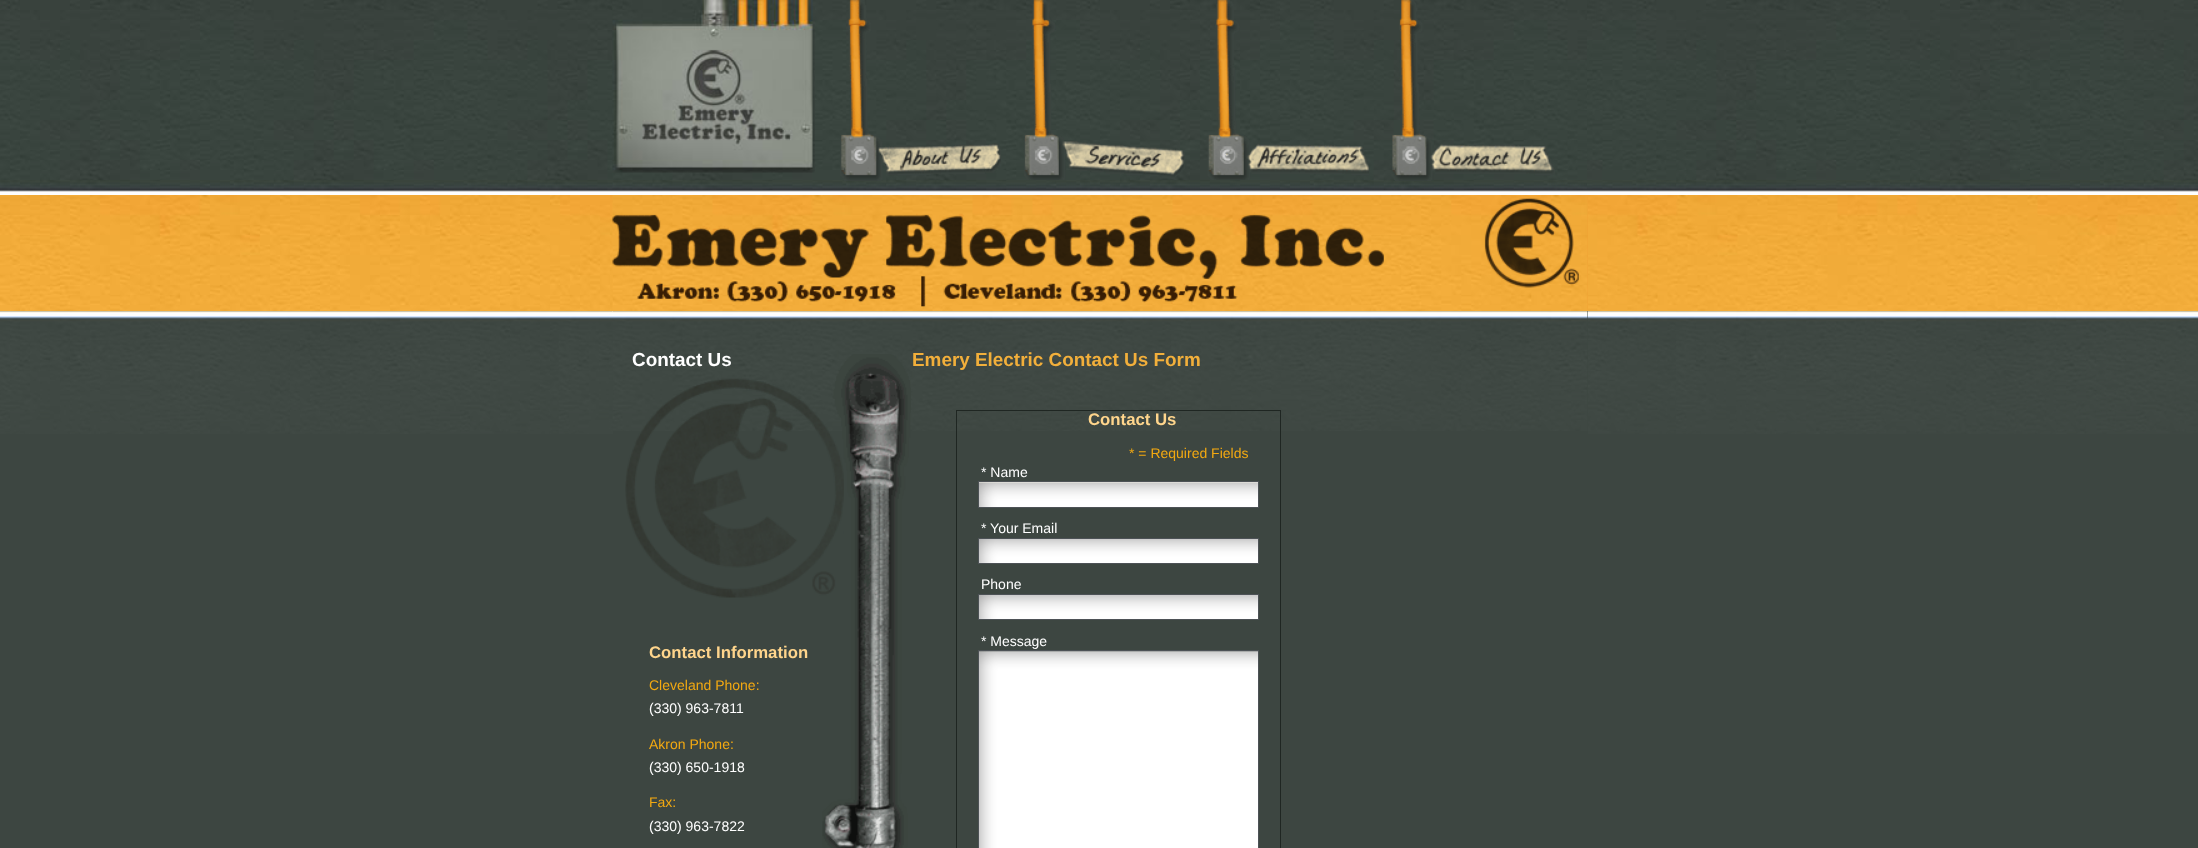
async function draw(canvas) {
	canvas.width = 2198;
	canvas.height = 848;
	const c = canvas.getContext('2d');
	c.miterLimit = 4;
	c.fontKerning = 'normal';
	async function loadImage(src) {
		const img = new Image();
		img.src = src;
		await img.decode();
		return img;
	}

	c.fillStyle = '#fff';
	c.fillRect(0, 0, 2198, 848);
	c.drawImage(await loadImage('img1.png'), 0, 0, 2198, 195);
	c.drawImage(await loadImage('img2.png'), 612, 0, 975, 190);
	c.drawImage(await loadImage('img3.png'), 612, 0, 203, 173);
	c.drawImage(await loadImage('img4.png'), 840, 0, 161, 181);
	c.drawImage(await loadImage('img5.png'), 1024, 0, 161, 180);
	c.drawImage(await loadImage('img6.png'), 1207, 0, 162, 180);
	c.drawImage(await loadImage('img7.png'), 1392, 0, 163, 181);
	c.drawImage(await loadImage('img8.png'), 0, 195, 2198, 116);
	c.fillStyle = '#f1a334';
	c.fillRect(1587, 195, 1, 116);
	c.drawImage(await loadImage('img9.png'), 612, 195, 976, 116);
	c.drawImage(await loadImage('img10.png'), 612, 198, 967, 109);
	c.fillStyle = '#3d4641';
	c.fillRect(0, 311, 2198, 537);
	c.drawImage(await loadImage('img11.png'), 0, 311, 2198, 123);
	c.fillRect(613, 311, 975, 123);
	c.drawImage(await loadImage('img12.png'), 612, 311, 976, 120);
	c.drawImage(await loadImage('img13.png'), 822, 354, 89, 494);
	c.font = 'bold 18.9px Liberation Sans';
	c.fillStyle = '#fff';
	c.fillText('Contact Us', 632, 366);
	c.drawImage(await loadImage('img14.png'), 625, 378, 219, 220);
	c.font = 'bold 16.75px Liberation Sans';
	c.fillStyle = '#ffd58c';
	c.fillText('Contact Information', 649, 658);
	c.font = '14px Liberation Sans';
	c.fillStyle = '#f3a911';
	c.fillText('Cleveland Phone:', 649, 690);
	c.fillStyle = '#fff';
	c.fillText('(330) 963-7811', 649, 713);
	c.fillStyle = '#f3a911';
	c.fillText('Akron Phone:', 649, 749);
	c.fillStyle = '#fff';
	c.fillText('(330) 650-1918', 649, 772);
	c.fillStyle = '#f3a911';
	c.fillText('Fax:', 649, 807);
	c.fillStyle = '#fff';
	c.fillText('(330) 963-7822', 649, 831);
	c.font = 'bold 18.9px Liberation Sans';
	c.fillStyle = '#f2af3b';
	c.fillText('Emery Electric Contact Us Form', 912, 366);
	c.strokeStyle = '#1f2622';
	c.strokeRect(956.5, 410.5, 324, 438);
	c.font = 'bold 16.75px Liberation Sans';
	c.fillStyle = '#ffd58c';
	c.fillText('Contact Us', 1088, 425);
	c.font = '14px Liberation Sans';
	c.fillStyle = '#f3a911';
	c.fillText('* = Required Fields', 1129, 458);
	c.fillStyle = '#fff';
	c.fillText('* Name', 981, 477);
	c.fillStyle = '#eae8de';
	c.fillRect(979, 482, 279, 1);
	c.drawImage(await loadImage('img15.png'), 979, 482, 279, 25);
	c.strokeStyle = '#4d5256';
	c.strokeRect(978.5, 481.5, 280, 26);
	c.fillStyle = '#fff';
	c.fillText('* Your Email', 981, 533);
	c.drawImage(await loadImage('img16.png'), 979, 539, 279, 24);
	c.strokeRect(978.5, 538.5, 280, 25);
	c.fillText('Phone', 981, 589);
	c.drawImage(await loadImage('img17.png'), 979, 595, 279, 24);
	c.strokeRect(978.5, 594.5, 280, 25);
	c.fillText('* Message', 981, 646);
	c.drawImage(await loadImage('img18.png'), 979, 651, 279, 197);
	c.strokeRect(978.5, 650.5, 280, 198);
}

draw(document.querySelector('canvas'));
